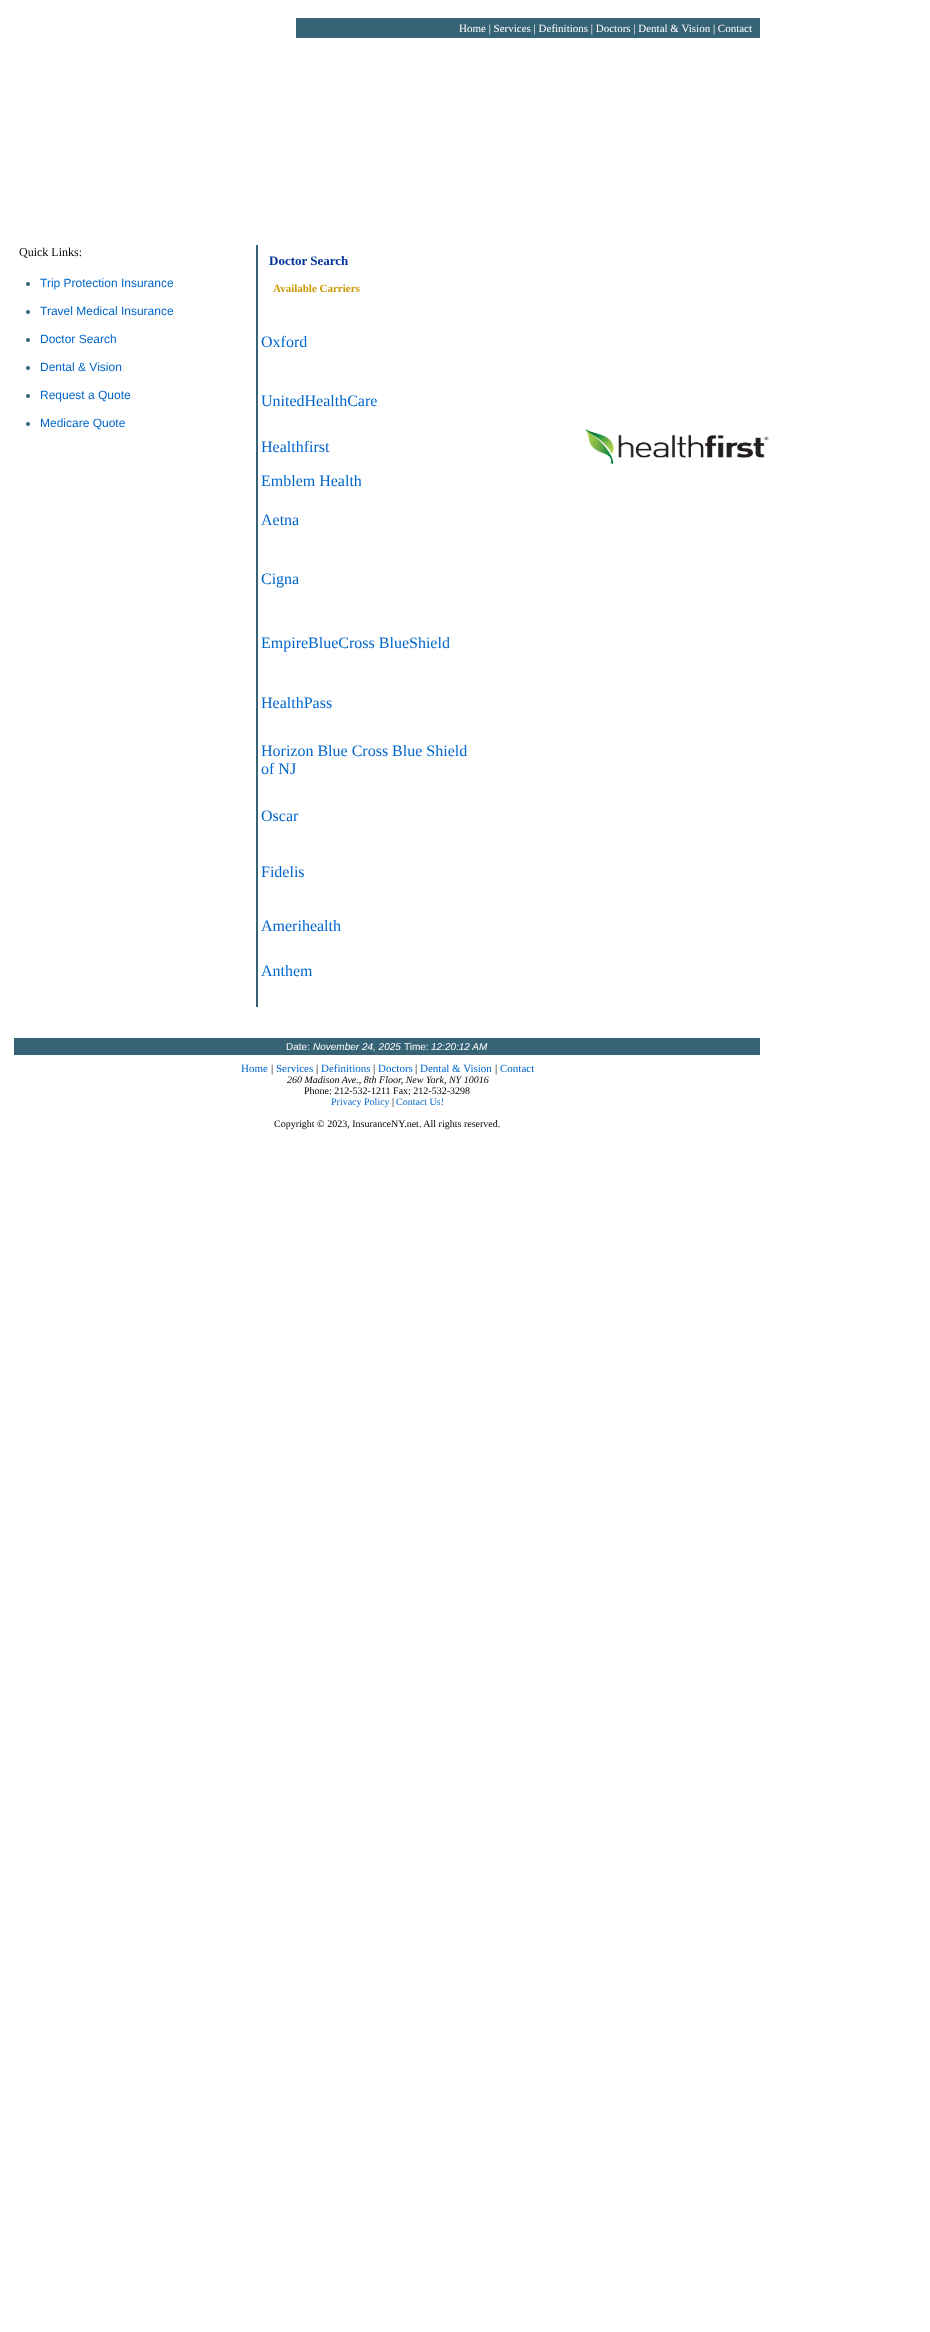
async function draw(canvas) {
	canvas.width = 930;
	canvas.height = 2332;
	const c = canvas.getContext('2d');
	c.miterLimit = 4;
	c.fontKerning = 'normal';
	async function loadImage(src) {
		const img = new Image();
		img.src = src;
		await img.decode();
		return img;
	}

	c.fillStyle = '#fff';
	c.fillRect(0, 0, 930, 2332);
	c.fillStyle = '#376376';
	c.fillRect(296, 18, 464, 20);
	c.font = '11px Liberation Serif';
	c.fillStyle = '#fff';
	c.fillText('Home | Services | Definitions | Doctors | Dental & Vision | Contact', 459, 32);
	c.font = '12px Liberation Serif';
	c.fillStyle = '#000';
	c.fillText('Quick Links:', 19, 256);
	c.fillStyle = '#376376';
	c.beginPath();
	c.arc(28, 284, 2, 0, 2 * Math.PI);
	c.fill();
	c.font = '12px Liberation Sans';
	c.fillStyle = '#06c';
	c.fillText('Trip Protection Insurance', 40, 287);
	c.fillStyle = '#376376';
	c.beginPath();
	c.arc(28, 312, 2, 0, 2 * Math.PI);
	c.fill();
	c.fillStyle = '#06c';
	c.fillText('Travel Medical Insurance', 40, 315);
	c.fillStyle = '#376376';
	c.beginPath();
	c.arc(28, 340, 2, 0, 2 * Math.PI);
	c.fill();
	c.fillStyle = '#06c';
	c.fillText('Doctor Search', 40, 343);
	c.fillStyle = '#376376';
	c.beginPath();
	c.arc(28, 368, 2, 0, 2 * Math.PI);
	c.fill();
	c.fillStyle = '#06c';
	c.fillText('Dental & Vision', 40, 371);
	c.fillStyle = '#376376';
	c.beginPath();
	c.arc(28, 396, 2, 0, 2 * Math.PI);
	c.fill();
	c.fillStyle = '#06c';
	c.fillText('Request a Quote', 40, 399);
	c.fillStyle = '#376376';
	c.beginPath();
	c.arc(28, 424, 2, 0, 2 * Math.PI);
	c.fill();
	c.fillStyle = '#06c';
	c.fillText('Medicare Quote', 40, 427);
	c.fillStyle = '#376376';
	c.fillRect(256, 245, 2, 762);
	c.font = 'bold 13px Liberation Serif';
	c.fillStyle = '#039';
	c.fillText('Doctor Search', 269, 265);
	c.font = 'bold 11px Liberation Serif';
	c.fillStyle = '#c90';
	c.fillText('Available Carriers', 273, 292);
	c.font = '16px Liberation Serif';
	c.fillStyle = '#06c';
	for (const [text, x, y] of [
		['Oxford', 261, 347],
		['UnitedHealthCare', 261, 406],
		['Healthfirst', 261, 452],
	]) {
		c.fillText(text, x, y);
	}
	c.drawImage(await loadImage('img1.png'), 585, 429, 184, 36);
	for (const [text, x, y] of [
		['Emblem Health', 261, 486],
		['Aetna', 261, 525],
		['Cigna', 261, 584],
		['EmpireBlueCross BlueShield', 261, 648],
		['HealthPass', 261, 708],
		['Horizon Blue Cross Blue Shield', 261, 756],
		['of NJ', 261, 774],
		['Oscar', 261, 821],
		['Fidelis', 261, 877],
		['Amerihealth', 261, 931],
		['Anthem', 261, 976],
	]) {
		c.fillText(text, x, y);
	}
	c.fillStyle = '#376376';
	c.fillRect(14, 1038, 746, 17);
	c.font = '10px Liberation Sans';
	c.fillStyle = '#fff';
	c.fillText('Date:', 286, 1050);
	c.font = 'italic 10px Liberation Sans';
	c.fillText('November 24, 2025', 313, 1050);
	c.font = '10px Liberation Sans';
	c.fillText('Time:', 404, 1050);
	c.font = 'italic 10px Liberation Sans';
	c.fillText('12:20:12 AM', 431, 1050);
	c.font = '11px Liberation Serif';
	c.fillStyle = '#06c';
	c.fillText('Home', 241, 1072);
	c.fillStyle = '#000';
	c.fillText('|', 271, 1072);
	c.fillStyle = '#06c';
	c.fillText('Services', 276, 1072);
	c.fillStyle = '#000';
	c.fillText('|', 316, 1072);
	c.fillStyle = '#06c';
	c.fillText('Definitions', 321, 1072);
	c.fillStyle = '#000';
	c.fillText('|', 373, 1072);
	c.fillStyle = '#06c';
	c.fillText('Doctors', 378, 1072);
	c.fillStyle = '#000';
	c.fillText('|', 415, 1072);
	c.fillStyle = '#06c';
	c.fillText('Dental & Vision', 420, 1072);
	c.fillStyle = '#000';
	c.fillText('|', 495, 1072);
	c.fillStyle = '#06c';
	c.fillText('Contact', 500, 1072);
	c.font = 'italic 10px Liberation Serif';
	c.fillStyle = '#000';
	c.fillText('260 Madison Ave., 8th Floor, New York, NY 10016', 287, 1083);
	c.font = '10px Liberation Serif';
	c.fillText('Phone: 212-532-1211 Fax: 212-532-3298', 304, 1094);
	c.fillStyle = '#06c';
	c.fillText('Privacy Policy', 331, 1105);
	c.fillStyle = '#000';
	c.fillText('|', 392, 1105);
	c.fillStyle = '#06c';
	c.fillText('Contact Us!', 396, 1105);
	c.fillStyle = '#000';
	c.fillText('Copyright © 2023, InsuranceNY.net. All rights reserved.', 274, 1127);
}

draw(document.querySelector('canvas'));
